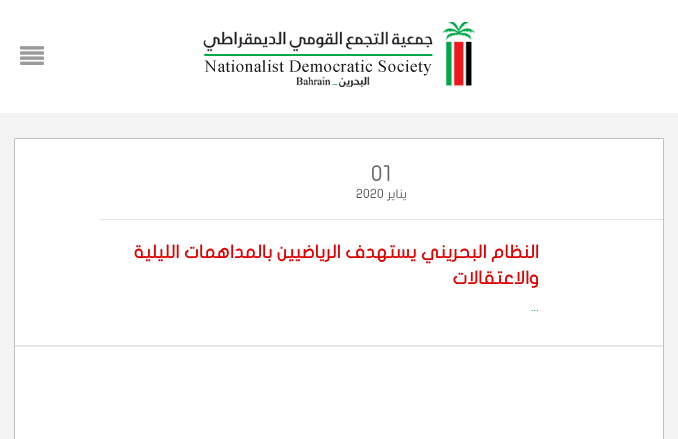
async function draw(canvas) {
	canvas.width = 678;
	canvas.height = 439;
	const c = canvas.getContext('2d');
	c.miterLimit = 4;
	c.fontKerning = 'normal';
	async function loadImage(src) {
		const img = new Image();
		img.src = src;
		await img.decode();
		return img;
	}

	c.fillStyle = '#f3f3f3';
	c.fillRect(0, 0, 678, 439);
	c.fillStyle = '#fff';
	c.fillRect(0, 0, 678, 113);
	c.drawImage(await loadImage('img1.png'), 203, 22, 272, 65);
	c.drawImage(await loadImage('img2.png'), 20, 46, 24, 19);
	c.beginPath();
	c.rect(14.5, 138.5, 649, 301);
	c.fill();
	c.strokeStyle = '#c1c1c1';
	c.stroke();
	c.fillStyle = '#e6e6e6';
	c.fillRect(99, 219, 564, 1);
	c.font = '22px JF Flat';
	c.fillStyle = '#666';
	c.fillText('01', 371, 181);
	c.direction = 'rtl';
	c.font = '12px JF Flat';
	c.fillStyle = '#555';
	c.fillText('يناير', 407, 198);
	c.direction = 'ltr';
	c.font = '13px JF Flat';
	c.fillText('2020', 356, 198);
	c.direction = 'rtl';
	c.font = 'bold 18px JF Flat';
	c.fillStyle = '#dd0202';
	c.fillText('النظام البحريني يستهدف الرياضيين بالمداهمات الليلية', 539, 258);
	c.fillText('والاعتقالات', 539, 284);
	c.direction = 'ltr';
	c.font = '13px JF Flat';
	c.fillStyle = '#00a747';
	c.fillText('...', 531, 311);
	c.fillStyle = '#e6e6e6';
	c.fillRect(15, 345, 648, 2);
}

draw(document.querySelector('canvas'));
